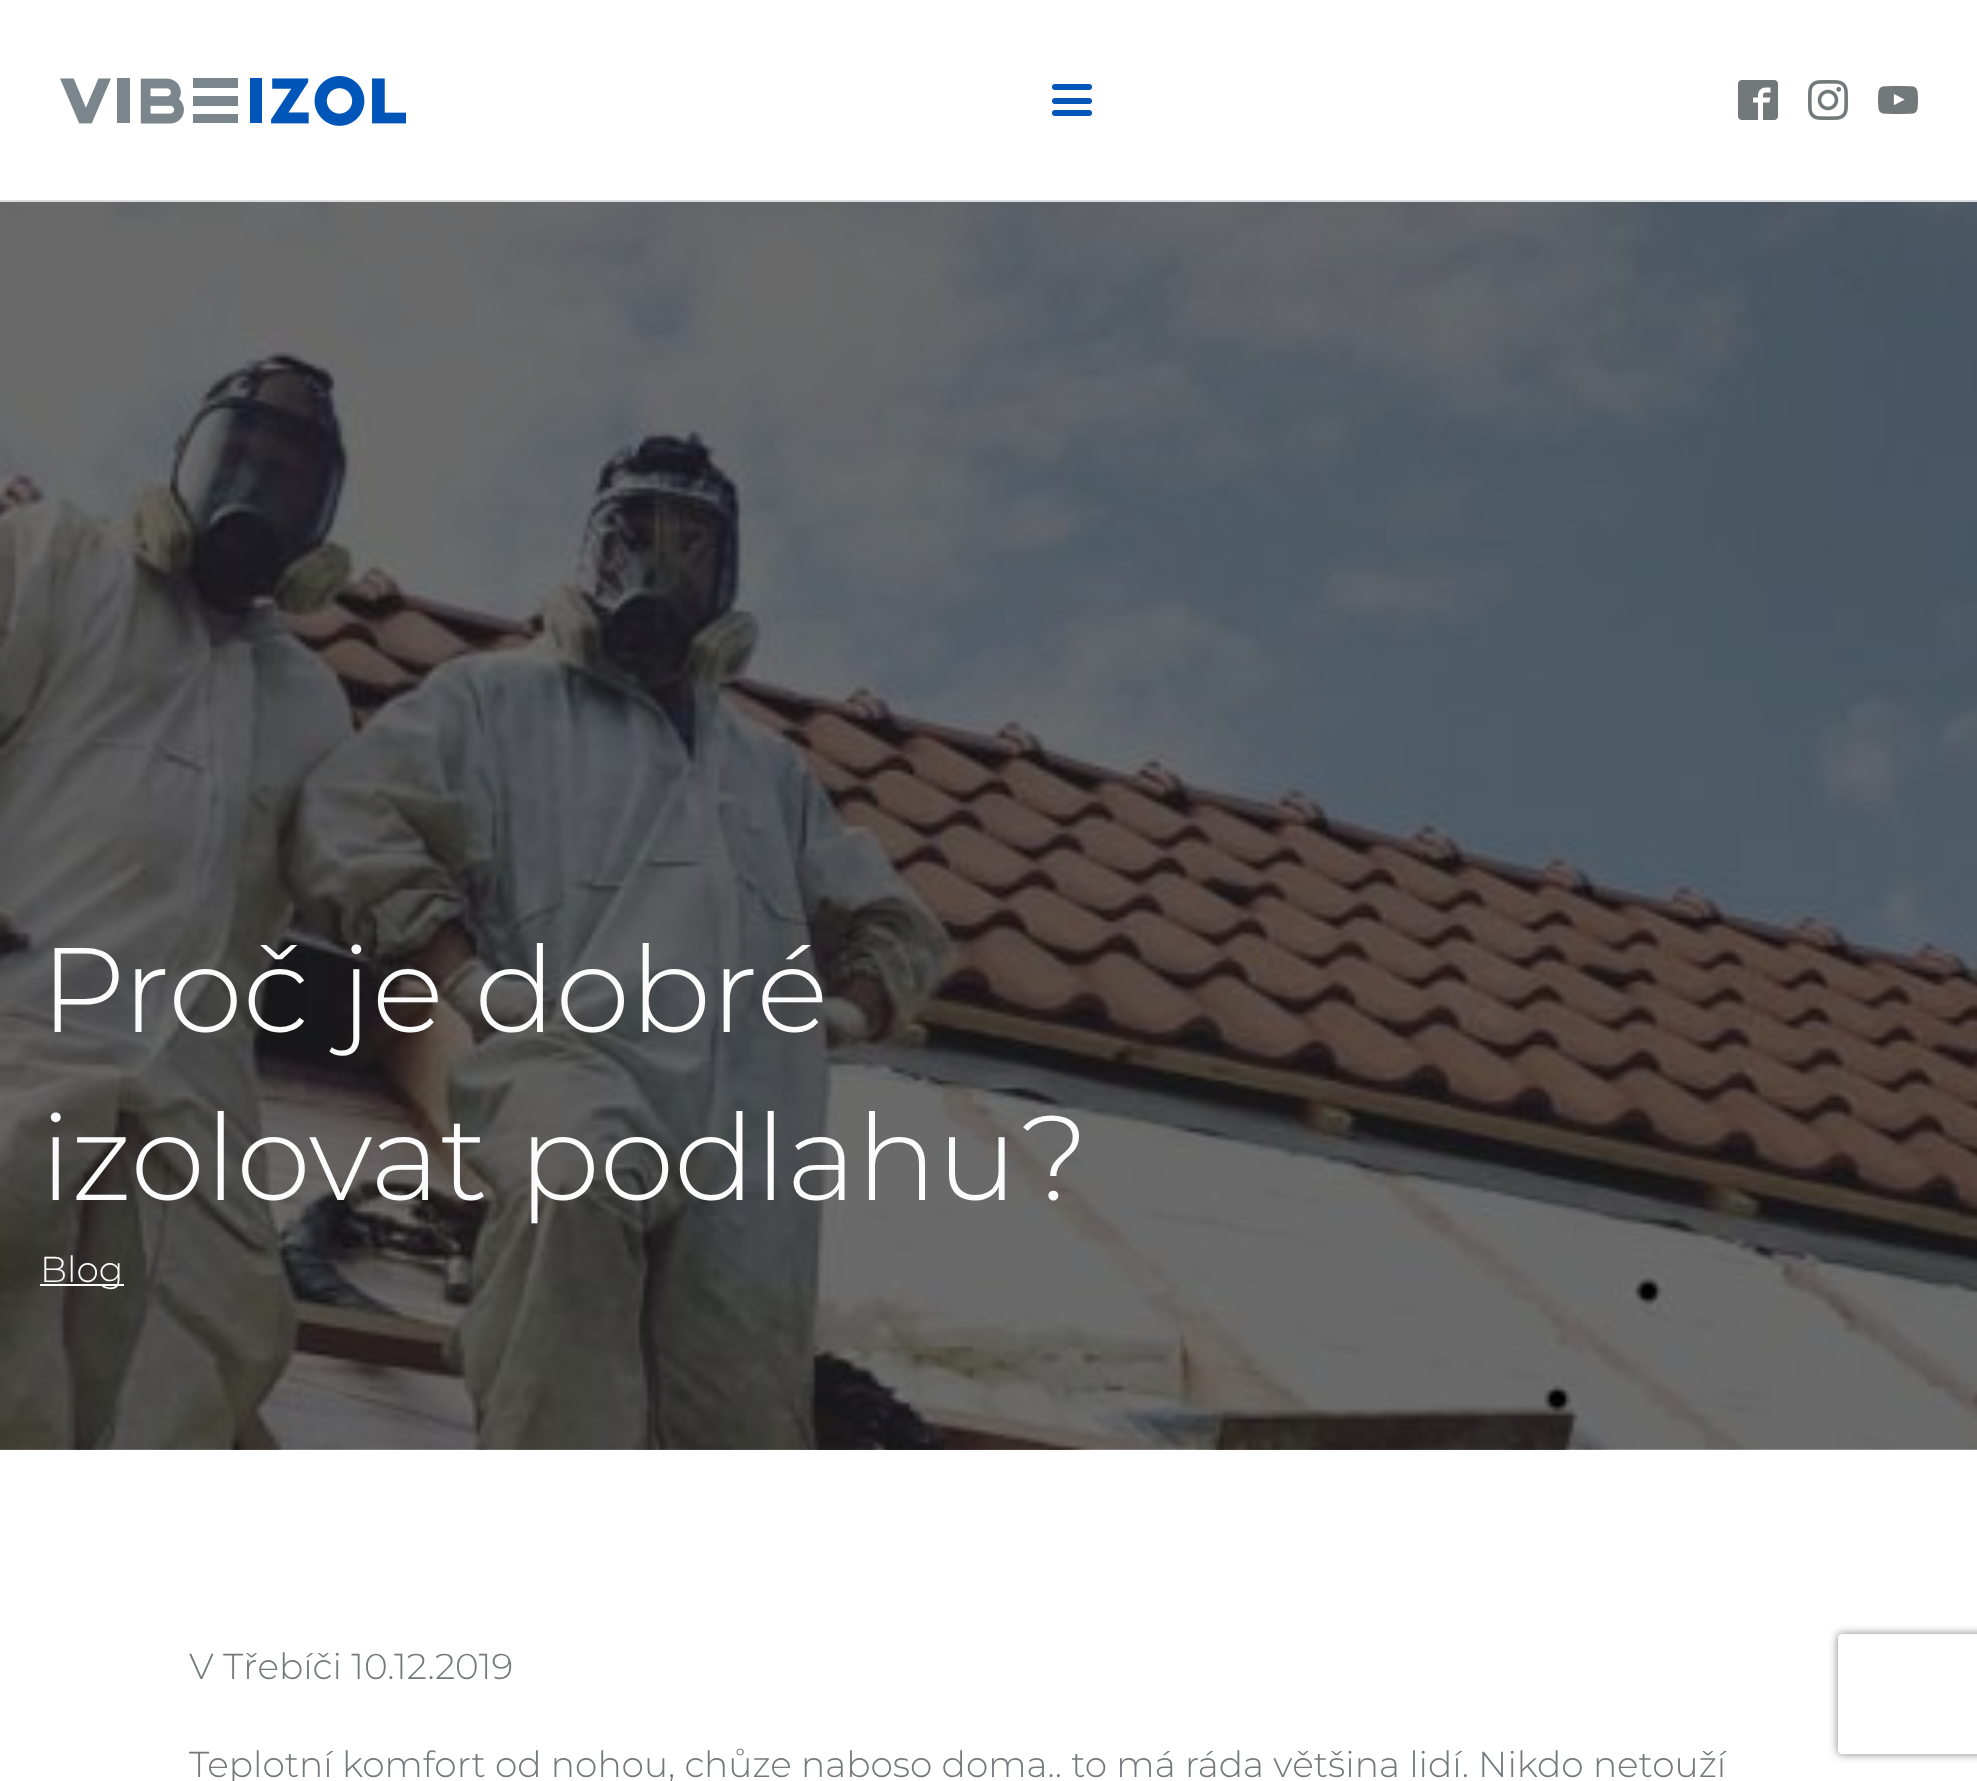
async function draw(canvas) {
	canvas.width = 1977;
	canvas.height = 1781;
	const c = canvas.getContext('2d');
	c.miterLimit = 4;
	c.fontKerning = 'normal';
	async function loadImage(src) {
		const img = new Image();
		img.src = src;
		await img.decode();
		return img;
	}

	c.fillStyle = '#fff';
	c.fillRect(0, 0, 1977, 1781);
	c.fillStyle = '#d9dcdf';
	c.fillRect(0, 200, 1977, 2);
	c.drawImage(await loadImage('img1.png'), 60, 76, 346, 50);
	c.fillStyle = '#0056b8';
	c.beginPath();
	c.roundRect(1052, 84, 40, 6, 3);
	c.fill();
	c.beginPath();
	c.roundRect(1052, 98, 40, 6, 3);
	c.fill();
	c.beginPath();
	c.roundRect(1052, 110, 40, 6, 3);
	c.fill();
	c.drawImage(await loadImage('img2.png'), 1738, 80, 40, 40);
	c.drawImage(await loadImage('img3.png'), 1808, 80, 40, 40);
	c.drawImage(await loadImage('img4.png'), 1878, 85, 40, 30);
	c.drawImage(await loadImage('img5.png'), 0, 202, 1977, 1248);
	c.font = '300 120px Montserrat';
	c.fillStyle = '#fbfbfb';
	c.fillText('Proč je dobré', 40, 1032);
	c.fillText('izolovat podlahu?', 40, 1200);
	c.fillStyle = '#fff';
	c.fillRect(40, 1284, 84, 2);
	c.font = '300 36px Montserrat';
	c.fillStyle = '#fbfbfb';
	c.fillText('Blog', 40, 1282);
	c.fillStyle = '#73787a';
	c.fillText('V Třebíči 10.12.2019', 189, 1679);
	c.fillText('Teplotní komfort od nohou, chůze naboso doma.. to má ráda většina lidí. Nikdo netouží', 189, 1777);
	c.save();
	c.beginPath();
	c.moveTo(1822, 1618);
	c.lineTo(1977, 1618);
	c.lineTo(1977, 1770);
	c.lineTo(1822, 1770);
	c.closePath();
	c.moveTo(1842, 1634);
	c.lineTo(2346, 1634);
	c.bezierCurveTo(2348, 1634, 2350, 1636, 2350, 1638);
	c.lineTo(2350, 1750);
	c.bezierCurveTo(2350, 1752, 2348, 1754, 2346, 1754);
	c.lineTo(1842, 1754);
	c.bezierCurveTo(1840, 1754, 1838, 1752, 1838, 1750);
	c.lineTo(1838, 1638);
	c.bezierCurveTo(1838, 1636, 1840, 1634, 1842, 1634);
	c.closePath();
	c.clip('evenodd');
	c.fillStyle = '#808080';
	c.filter = 'blur(5px)';
	c.beginPath();
	c.roundRect(1838, 1634, 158, 120, 4);
	c.fill();
	c.filter = 'none';
	c.restore();
}

draw(document.querySelector('canvas'));
